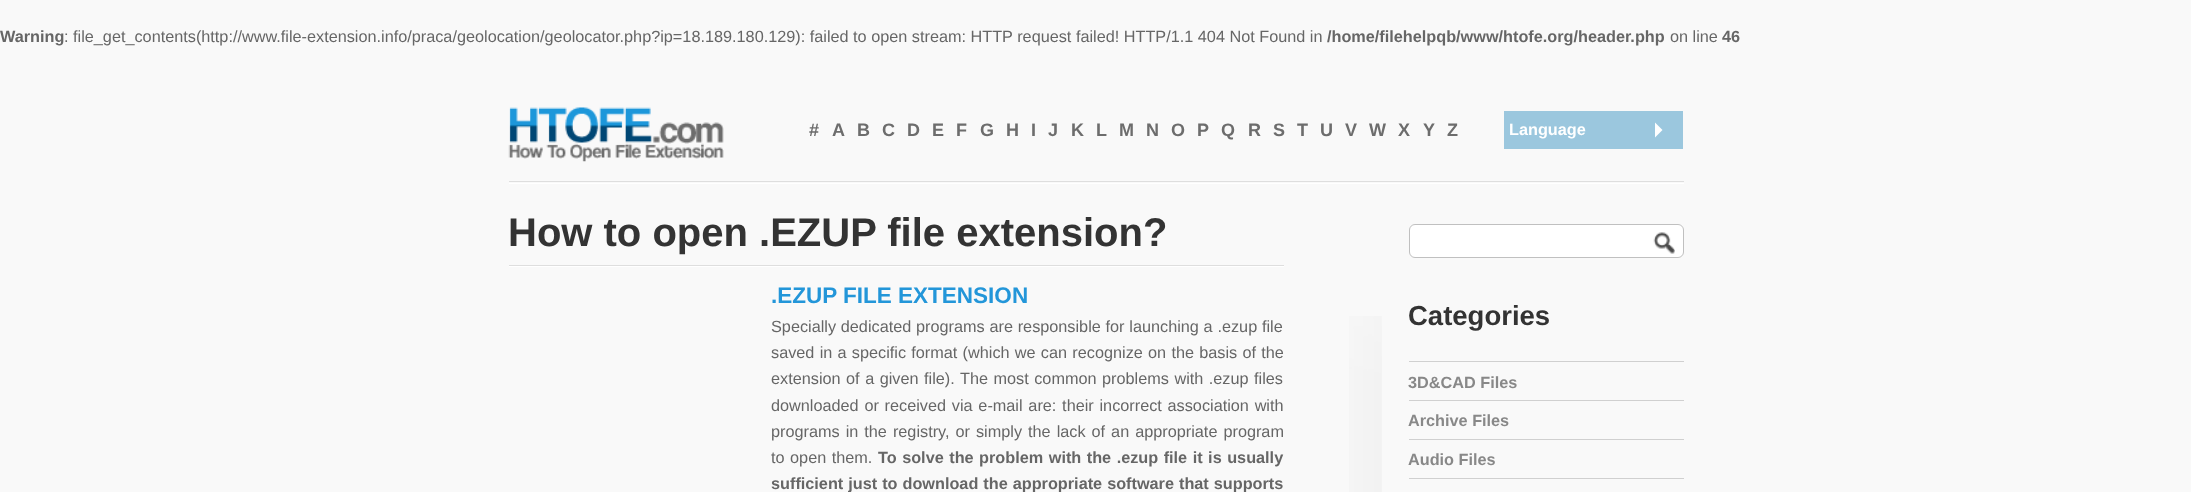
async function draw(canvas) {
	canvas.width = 2191;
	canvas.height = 492;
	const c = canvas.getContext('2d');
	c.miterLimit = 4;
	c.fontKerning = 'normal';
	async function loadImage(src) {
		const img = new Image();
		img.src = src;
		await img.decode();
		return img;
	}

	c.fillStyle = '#f9f9f9';
	c.fillRect(0, 0, 2191, 492);
	c.font = 'bold 16.25px Liberation Sans';
	c.fillStyle = '#666';
	c.fillText('Warning', 0, 42);
	c.font = '16.25px Liberation Sans';
	c.fillText(': file_get_contents(http://www.file-extension.info/praca/geolocation/geolocator.php?ip=18.189.180.129): failed to open stream: HTTP request failed! HTTP/1.1 404 Not Found in', 64, 42);
	c.font = 'bold 16.25px Liberation Sans';
	c.fillText('/home/filehelpqb/www/htofe.org/header.php', 1327, 42);
	c.font = '16.25px Liberation Sans';
	c.fillText('on line', 1670, 42);
	c.font = 'bold 16.25px Liberation Sans';
	c.fillText('46', 1722, 42);
	c.drawImage(await loadImage('img1.png'), 508, 107, 216, 55);
	c.font = 'bold 18px Liberation Sans';
	c.fillStyle = '#6d6d6d';
	for (const [text, x, y] of [
		['#', 809, 136],
		['A', 832, 136],
		['B', 857, 136],
		['C', 882, 136],
		['D', 907, 136],
		['E', 932, 136],
		['F', 956, 136],
		['G', 980, 136],
		['H', 1006, 136],
		['I', 1031, 136],
		['J', 1048, 136],
		['K', 1071, 136],
		['L', 1096, 136],
		['M', 1119, 136],
		['N', 1146, 136],
		['O', 1171, 136],
		['P', 1197, 136],
		['Q', 1221, 136],
		['R', 1248, 136],
		['S', 1273, 136],
		['T', 1297, 136],
		['U', 1320, 136],
		['V', 1345, 136],
		['W', 1369, 136],
		['X', 1398, 136],
		['Y', 1423, 136],
		['Z', 1447, 136],
	]) {
		c.fillText(text, x, y);
	}
	c.fillStyle = '#9bc7de';
	c.fillRect(1504, 111, 179, 38);
	c.font = 'bold 16.25px Liberation Sans';
	c.fillStyle = '#fff';
	c.fillText('Language', 1509, 135);
	c.beginPath();
	c.moveTo(1655, 137.5);
	c.lineTo(1655, 122.5);
	c.lineTo(1662.5, 130);
	c.closePath();
	c.fill();
	c.fillStyle = '#dedede';
	c.fillRect(509, 181, 1175, 1);
	c.fillStyle = '#fff';
	c.fillRect(509, 183, 1175, 1);
	c.font = 'bold 40px Liberation Sans';
	c.fillStyle = '#333';
	c.fillText('How to open .EZUP file extension?', 508, 246);
	c.fillStyle = '#dedede';
	c.fillRect(509, 265, 775, 1);
	c.fillStyle = '#fff';
	c.fillRect(509, 266, 775, 1);
	c.font = 'bold 22.5px Liberation Sans';
	c.fillStyle = '#2396d9';
	c.fillText('.EZUP FILE EXTENSION', 771, 303);
	c.wordSpacing = '0.25px';
	c.font = '16.25px Liberation Sans';
	c.fillStyle = '#666';
	c.fillText('Specially dedicated programs are responsible for launching a .ezup file', 771, 332);
	c.wordSpacing = '0.75px';
	c.fillText('saved in a specific format (which we can recognize on the basis of the', 771, 358);
	c.wordSpacing = '1px';
	c.fillText('extension of a given file). The most common problems with .ezup files', 771, 384);
	c.wordSpacing = '1.25px';
	c.fillText('downloaded or received via e-mail are: their incorrect association with', 771, 411);
	c.wordSpacing = '1.5px';
	c.fillText('programs in the registry, or simply the lack of an appropriate program', 771, 437);
	c.wordSpacing = '1px';
	c.fillText('to open them.', 771, 463);
	c.font = 'bold 16.25px Liberation Sans';
	c.fillText('To solve the problem with the .ezup file it is usually', 878, 463);
	c.wordSpacing = '0.5px';
	c.fillText('sufficient just to download the appropriate software that supports', 771, 489);
	c.drawImage(await loadImage('img2.png'), 1349, 316, 33, 176);
	c.fillStyle = '#fff';
	c.beginPath();
	c.roundRect(1409.5, 224.5, 274, 33, 5.5);
	c.fill();
	c.strokeStyle = '#c0c0c0';
	c.stroke();
	c.drawImage(await loadImage('img3.png'), 1653, 232, 22, 22);
	c.wordSpacing = '0px';
	c.font = 'bold 27.5px Liberation Sans';
	c.fillStyle = '#333';
	c.fillText('Categories', 1408, 325);
	c.fillStyle = '#d0d0d0';
	c.fillRect(1409, 361, 275, 1);
	c.fillRect(1409, 400, 275, 1);
	c.font = 'bold 16.25px Liberation Sans';
	c.fillStyle = '#888';
	c.fillText('3D&CAD Files', 1408, 388);
	c.fillStyle = '#d0d0d0';
	c.fillRect(1409, 439, 275, 1);
	c.fillStyle = '#888';
	c.fillText('Archive Files', 1408, 426);
	c.fillStyle = '#d0d0d0';
	c.fillRect(1409, 478, 275, 1);
	c.fillStyle = '#888';
	c.fillText('Audio Files', 1408, 465);
}

draw(document.querySelector('canvas'));
